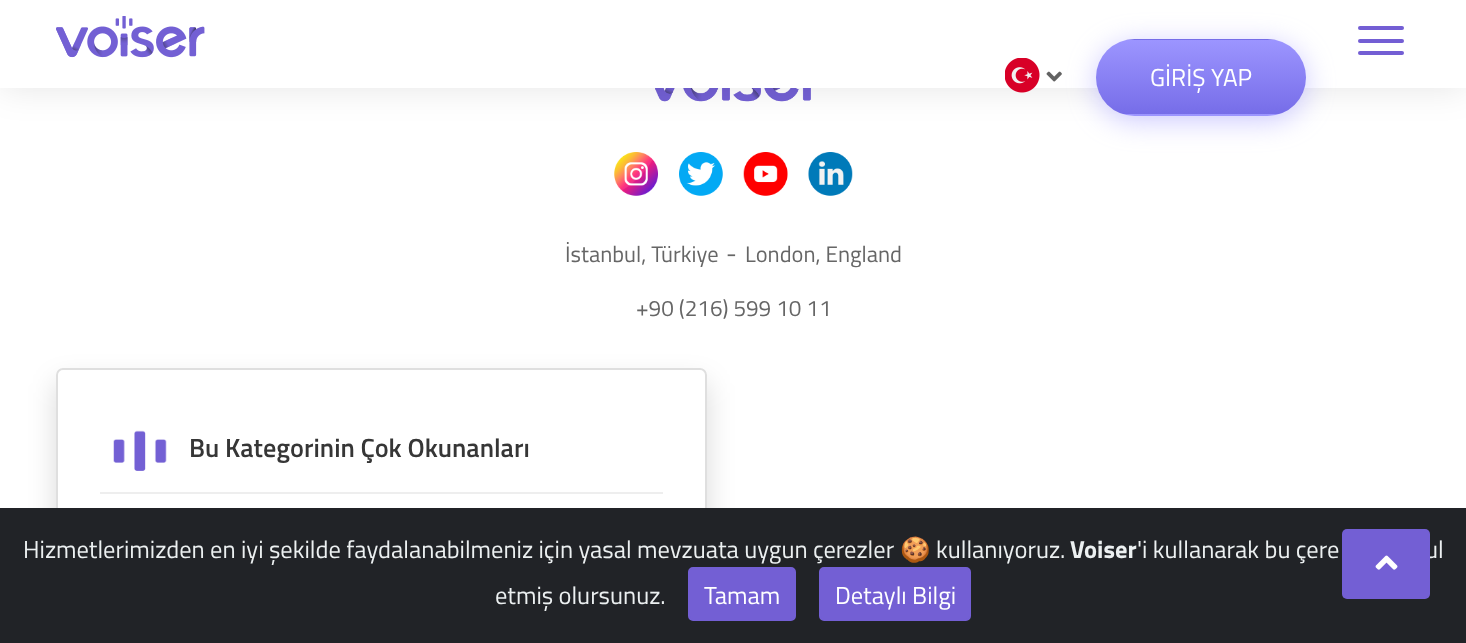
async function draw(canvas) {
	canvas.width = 1466;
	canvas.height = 643;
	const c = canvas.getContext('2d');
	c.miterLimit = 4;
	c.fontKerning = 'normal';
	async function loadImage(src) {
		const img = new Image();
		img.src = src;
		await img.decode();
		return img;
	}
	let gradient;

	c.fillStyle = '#fff';
	c.fillRect(0, 0, 1466, 643);
	c.drawImage(await loadImage('img4.png'), 655, 88, 156, 14);
	c.fillStyle = '#0000001a';
	c.filter = 'blur(17.5px)';
	c.beginPath();
	c.rect(0, 0, 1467, 88);
	c.fill();
	c.filter = 'none';
	c.fillStyle = '#fff';
	c.fillRect(0, 0, 1466, 88);
	c.drawImage(await loadImage('img1.png'), 56, 16, 149, 42);
	c.fillStyle = '#735ed4';
	c.beginPath();
	c.roundRect(1358, 26, 46, 4, 2);
	c.fill();
	c.beginPath();
	c.roundRect(1358, 39, 46, 4, 2);
	c.fill();
	c.beginPath();
	c.roundRect(1358, 51, 46, 4, 2);
	c.fill();
	c.drawImage(await loadImage('img2.png'), 1005, 58, 35, 35);
	c.drawImage(await loadImage('img3.png'), 1046, 71, 16, 11);
	c.fillStyle = '#9c95ff80';
	c.filter = 'blur(14px)';
	c.beginPath();
	c.roundRect(1096, 44, 210, 77, 38.5);
	c.fill();
	c.filter = 'none';
	c.save();
	c.beginPath();
	c.roundRect(1096, 39, 210, 77, 38.5);
	c.clip();
	gradient = c.createLinearGradient(1201, -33, 1201, 40);
	gradient.addColorStop(0, '#9c95ff');
	gradient.addColorStop(0.25, '#938bf9');
	gradient.addColorStop(0.5, '#8981f4');
	gradient.addColorStop(0.75, '#8077ee');
	gradient.addColorStop(1, '#766de8');
	c.fillStyle = gradient;
	c.fillRect(1126, 39, 150, 1);
	gradient = c.createLinearGradient(1201, 40, 1201, 114);
	gradient.addColorStop(0, '#9c95ff');
	gradient.addColorStop(0.25, '#938bf9');
	gradient.addColorStop(0.5, '#8981f4');
	gradient.addColorStop(0.75, '#8077ee');
	gradient.addColorStop(1, '#766de8');
	c.fillStyle = gradient;
	c.fillRect(1096, 40, 210, 74);
	gradient = c.createLinearGradient(1201, 114, 1201, 187);
	gradient.addColorStop(0, '#9c95ff');
	gradient.addColorStop(0.25, '#938bf9');
	gradient.addColorStop(0.5, '#8981f4');
	gradient.addColorStop(0.75, '#8077ee');
	gradient.addColorStop(1, '#766de8');
	c.fillStyle = gradient;
	c.fillRect(1122, 114, 158, 2);
	c.restore();
	c.font = '24.5px Titillium Web';
	c.fillStyle = '#fff';
	c.fillText('GİRİŞ YAP', 1150, 86);
	c.drawImage(await loadImage('img5.png'), 614, 152, 44, 44);
	c.drawImage(await loadImage('img6.png'), 679, 152, 44, 44);
	c.drawImage(await loadImage('img7.png'), 743, 152, 45, 44);
	c.drawImage(await loadImage('img8.png'), 808, 152, 45, 44);
	c.font = '22.5px Titillium Web';
	c.fillStyle = '#666';
	c.fillText('İstanbul, Türkiye', 565, 262);
	c.font = '24.5px Titillium Web';
	c.fillText('-', 726, 262);
	c.font = '22.5px Titillium Web';
	c.fillText('London, England', 745, 262);
	c.fillText('+90 (216) 599 10 11', 636, 316);
	c.save();
	c.beginPath();
	c.moveTo(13, 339);
	c.lineTo(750, 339);
	c.lineTo(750, 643);
	c.lineTo(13, 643);
	c.closePath();
	c.moveTo(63, 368);
	c.lineTo(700, 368);
	c.bezierCurveTo(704, 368, 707, 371, 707, 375);
	c.lineTo(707, 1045);
	c.bezierCurveTo(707, 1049, 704, 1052, 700, 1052);
	c.lineTo(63, 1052);
	c.bezierCurveTo(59, 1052, 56, 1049, 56, 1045);
	c.lineTo(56, 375);
	c.bezierCurveTo(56, 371, 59, 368, 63, 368);
	c.closePath();
	c.clip('evenodd');
	c.fillStyle = '#00000026';
	c.filter = 'blur(14px)';
	c.beginPath();
	c.roundRect(56, 382, 651, 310, 7);
	c.fill();
	c.filter = 'none';
	c.restore();
	c.beginPath();
	c.roundRect(57, 369, 649, 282, 6);
	c.strokeStyle = '#dfdfdf';
	c.lineWidth = 2;
	c.stroke();
	c.fillStyle = '#eee';
	c.fillRect(100, 492, 563, 2);
	c.drawImage(await loadImage('img9.png'), 113, 430, 54, 41);
	c.font = '600 26.25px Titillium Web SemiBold';
	c.fillStyle = '#363636';
	c.fillText('Bu Kategorinin Çok Okunanları', 189, 457);
	c.fillStyle = '#212327';
	c.fillRect(0, 508, 1466, 135);
	c.font = '24.5px Titillium Web';
	c.fillStyle = '#ecf0f1';
	c.fillText('ul', 1425, 558);
	c.fillStyle = '#735fd4';
	c.beginPath();
	c.roundRect(1342, 529, 88, 70, 5);
	c.fill();
	c.drawImage(await loadImage('img10.png'), 1375, 555, 23, 15);
	c.fillStyle = '#ecf0f1';
	c.fillText('Hizmetlerimizden en iyi şekilde faydalanabilmeniz için yasal mevzuata uygun çerezler', 23, 558);
	c.font = '24.5px Noto Color Emoji';
	c.fillText('🍪', 900, 558);
	c.font = '24.5px Titillium Web';
	c.fillText('kullanıyoruz.', 936, 558);
	c.font = 'bold 24.5px Titillium Web';
	c.fillText('Voiser', 1070, 558);
	c.font = '24.5px Titillium Web';
	c.fillText('\'i kullanarak bu çere', 1137, 558);
	c.fillText('etmiş olursunuz.', 495, 604);
	c.fillStyle = '#735fd4';
	c.beginPath();
	c.roundRect(689, 568, 106, 52, 4);
	c.fill();
	c.strokeStyle = '#735fd4';
	c.stroke();
	c.fillStyle = '#fff';
	c.fillText('Tamam', 704, 604);
	c.fillStyle = '#735fd4';
	c.beginPath();
	c.roundRect(820, 568, 150, 52, 4);
	c.fill();
	c.stroke();
	c.fillStyle = '#fff';
	c.fillText('Detaylı Bilgi', 835, 604);
}

draw(document.querySelector('canvas'));
